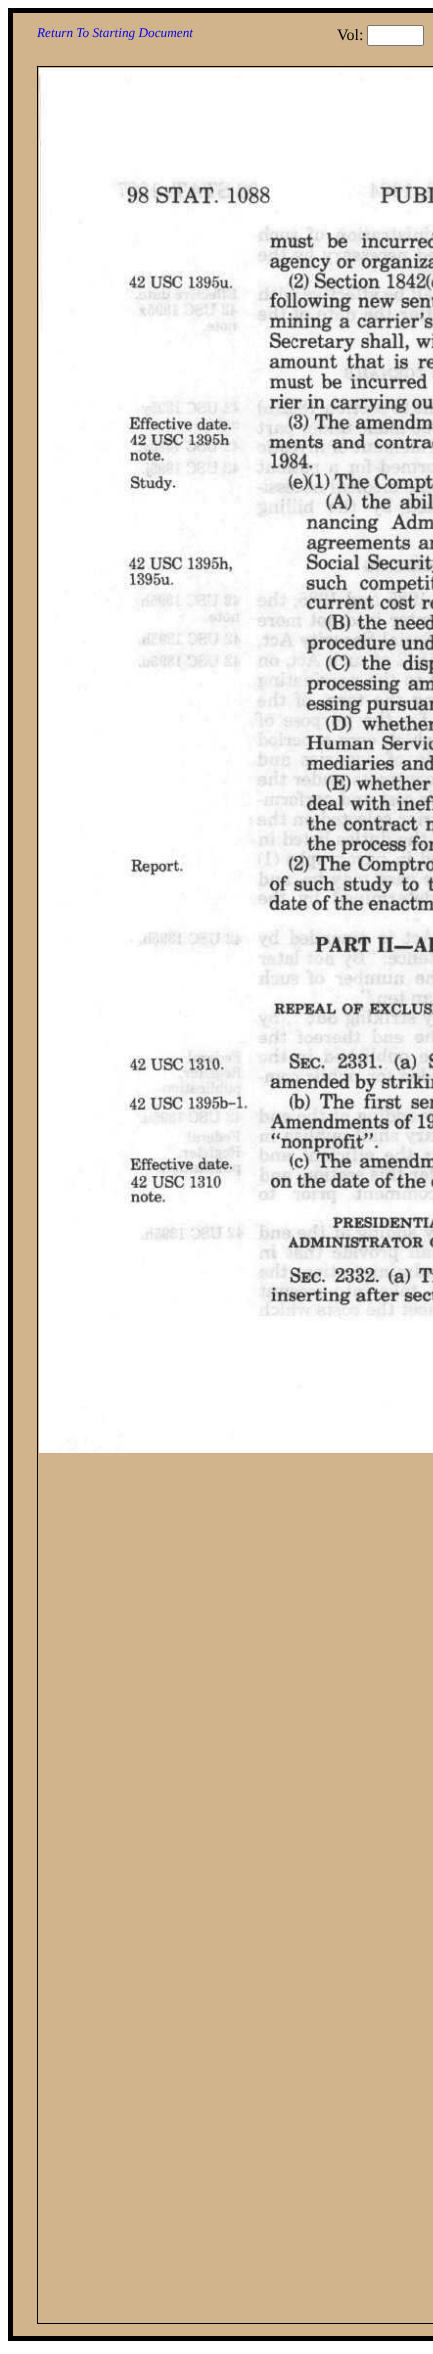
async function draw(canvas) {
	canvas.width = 433;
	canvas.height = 2354;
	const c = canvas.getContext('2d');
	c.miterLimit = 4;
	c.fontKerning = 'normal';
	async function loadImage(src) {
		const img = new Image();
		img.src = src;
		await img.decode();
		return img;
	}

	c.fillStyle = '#fff';
	c.fillRect(0, 0, 433, 2354);
	c.fillStyle = '#d2b48c';
	c.beginPath();
	c.rect(10.5, 10.5, 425, 2328);
	c.fill();
	c.strokeStyle = '#000';
	c.lineWidth = 5;
	c.stroke();
	c.font = 'italic 13.25px Liberation Serif';
	c.fillStyle = '#00e';
	c.fillText('Return To Starting Document', 37, 37);
	c.font = '16px Liberation Serif';
	c.fillStyle = '#000';
	c.fillText('Vol:', 337, 40);
	c.fillStyle = '#fff';
	c.beginPath();
	c.roundRect(367.5, 25.5, 56, 20, 1.5);
	c.fill();
	c.strokeStyle = '#767676';
	c.lineWidth = 1;
	c.stroke();
	c.strokeStyle = '#000';
	c.strokeRect(37.5, 66.5, 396, 2257);
	c.drawImage(await loadImage('img1.png'), 39, 68, 394, 1385);
}

draw(document.querySelector('canvas'));
